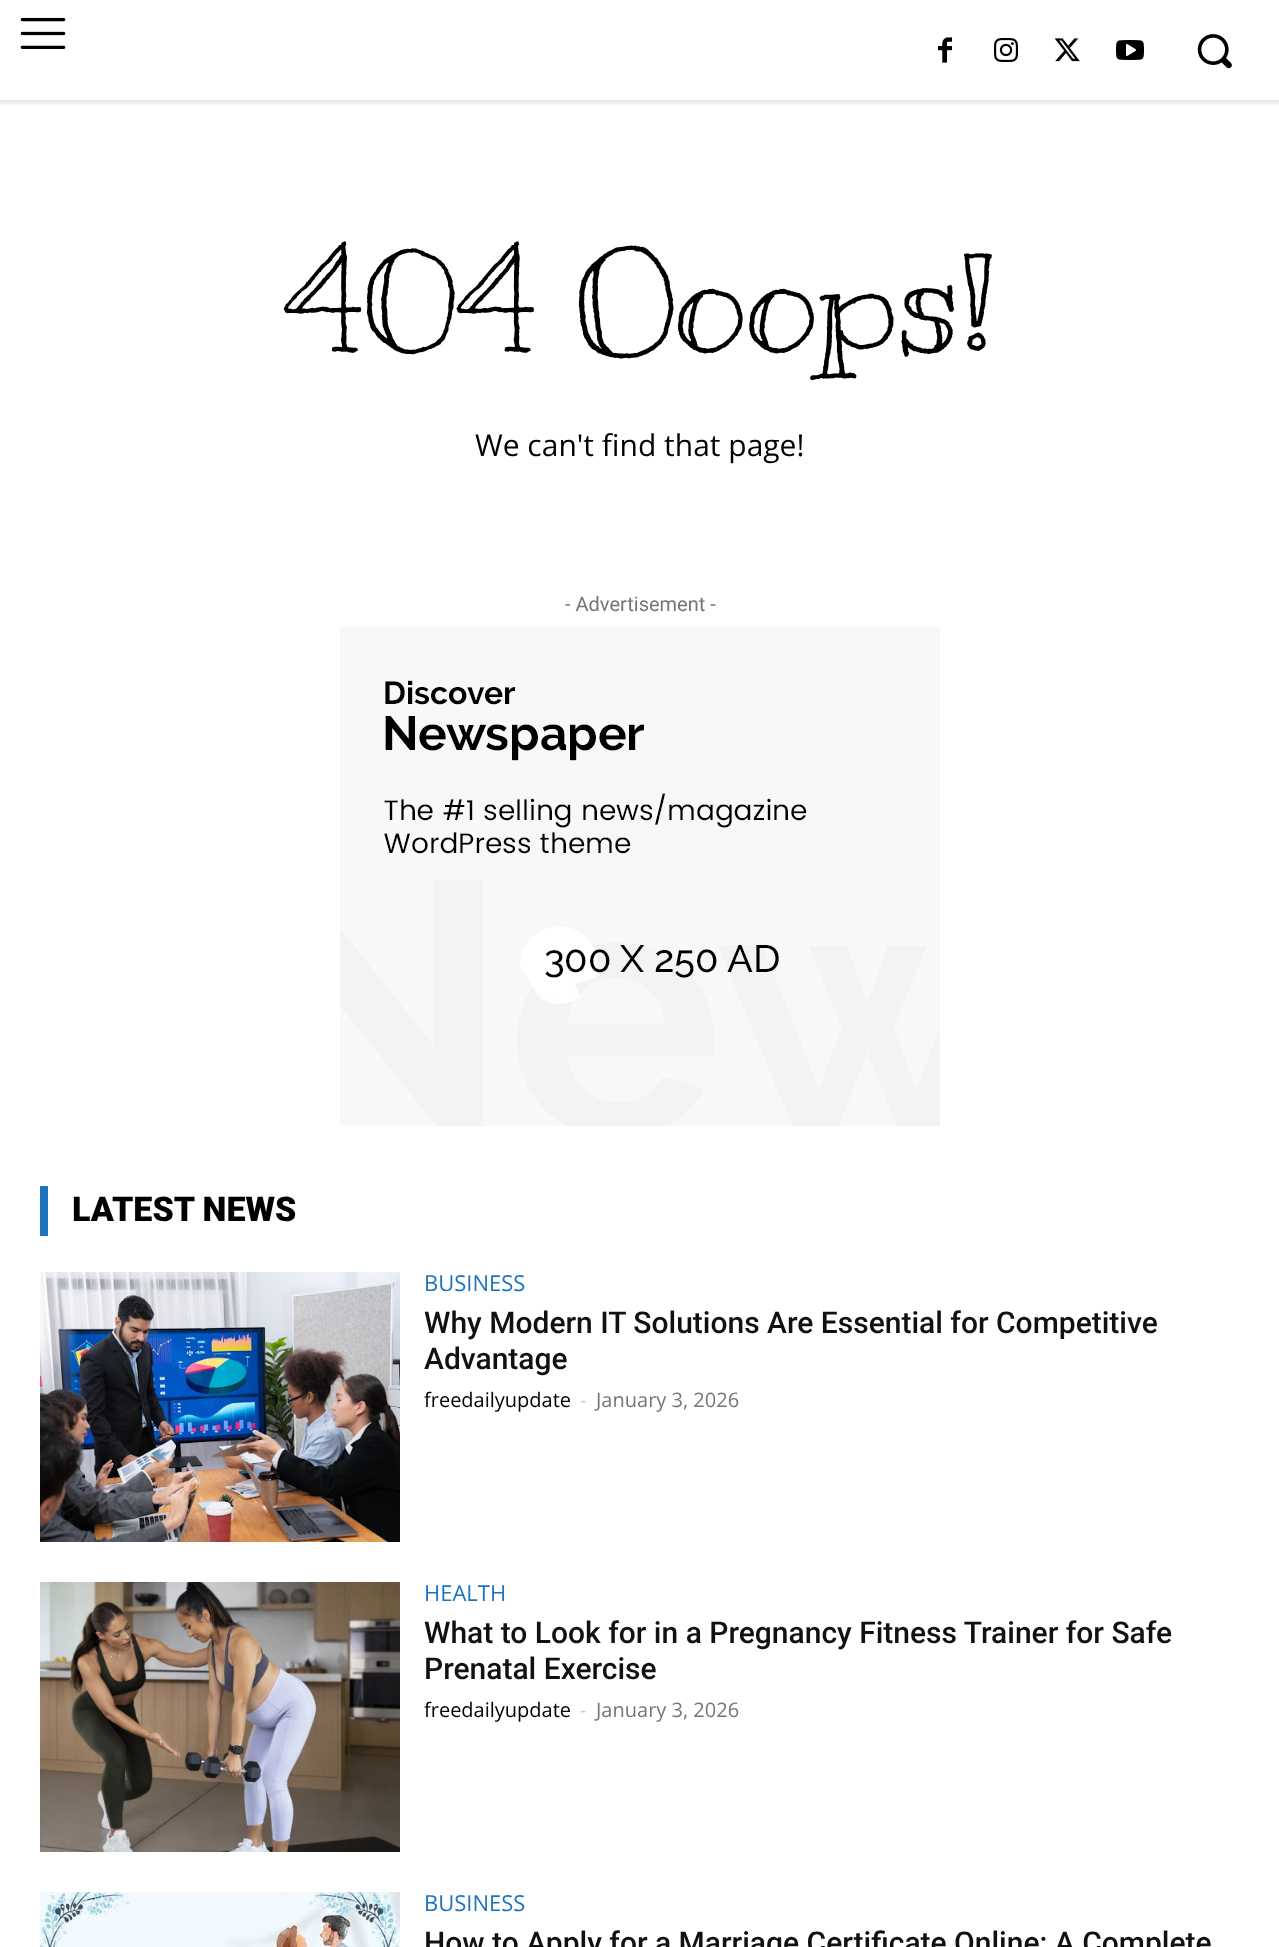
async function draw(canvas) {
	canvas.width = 1279;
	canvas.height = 1947;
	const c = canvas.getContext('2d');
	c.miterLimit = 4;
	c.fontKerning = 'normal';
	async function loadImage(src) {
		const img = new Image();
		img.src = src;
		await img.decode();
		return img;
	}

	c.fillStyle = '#fff';
	c.fillRect(0, 0, 1279, 1947);
	c.drawImage(await loadImage('img1.png'), 20, 17, 46, 32);
	c.drawImage(await loadImage('img2.png'), 938, 37, 14, 26);
	c.drawImage(await loadImage('img3.png'), 994, 38, 24, 24);
	c.drawImage(await loadImage('img4.png'), 1054, 38, 26, 24);
	c.drawImage(await loadImage('img5.png'), 1116, 40, 28, 20);
	c.drawImage(await loadImage('img6.png'), 1197, 34, 35, 35);
	c.save();
	c.beginPath();
	c.rect(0, 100, 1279, 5);
	c.clip();
	c.fillStyle = '#00000014';
	c.filter = 'blur(1px)';
	c.beginPath();
	c.rect(-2, 0, 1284, 104);
	c.fill();
	c.filter = 'none';
	c.restore();
	c.font = '140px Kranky';
	c.fillStyle = '#000';
	c.fillText('404 Ooops!', 285, 350);
	c.font = '30px Open Sans';
	c.fillText('We can\'t find that page!', 475, 456);
	c.font = '20px Roboto';
	c.fillStyle = '#767676';
	c.fillText('- Advertisement -', 565, 611);
	c.drawImage(await loadImage('img7.png'), 340, 626, 600, 500);
	c.fillStyle = '#1e73be';
	c.fillRect(40, 1186, 8, 50);
	c.font = '900 34px Roboto';
	c.fillStyle = '#000';
	c.fillText('LATEST NEWS', 72, 1221);
	c.drawImage(await loadImage('img8.png'), 40, 1272, 360, 270);
	c.font = '22px Open Sans';
	c.fillStyle = '#1e73be';
	c.fillText('BUSINESS', 424, 1291);
	c.font = '500 30px Roboto';
	c.fillStyle = '#111';
	c.fillText('Why Modern IT Solutions Are Essential for Competitive', 424, 1333);
	c.fillText('Advantage', 424, 1369);
	c.font = '20px Open Sans';
	c.fillStyle = '#000';
	c.fillText('freedailyupdate', 424, 1407);
	c.fillStyle = '#ccc';
	c.fillText('-', 580, 1407);
	c.fillStyle = '#767676';
	c.fillText('January 3, 2026', 596, 1407);
	c.drawImage(await loadImage('img9.png'), 40, 1582, 360, 270);
	c.font = '22px Open Sans';
	c.fillStyle = '#1e73be';
	c.fillText('HEALTH', 424, 1601);
	c.font = '500 30px Roboto';
	c.fillStyle = '#111';
	c.fillText('What to Look for in a Pregnancy Fitness Trainer for Safe', 424, 1643);
	c.fillText('Prenatal Exercise', 424, 1679);
	c.font = '20px Open Sans';
	c.fillStyle = '#000';
	c.fillText('freedailyupdate', 424, 1717);
	c.fillStyle = '#ccc';
	c.fillText('-', 580, 1717);
	c.fillStyle = '#767676';
	c.fillText('January 3, 2026', 596, 1717);
	c.drawImage(await loadImage('img10.png'), 40, 1892, 360, 55);
	c.font = '22px Open Sans';
	c.fillStyle = '#1e73be';
	c.fillText('BUSINESS', 424, 1911);
	c.font = '500 30px Roboto';
	c.fillStyle = '#111';
	c.fillText('How to Apply for a Marriage Certificate Online: A Complete', 424, 1953);
}

draw(document.querySelector('canvas'));
